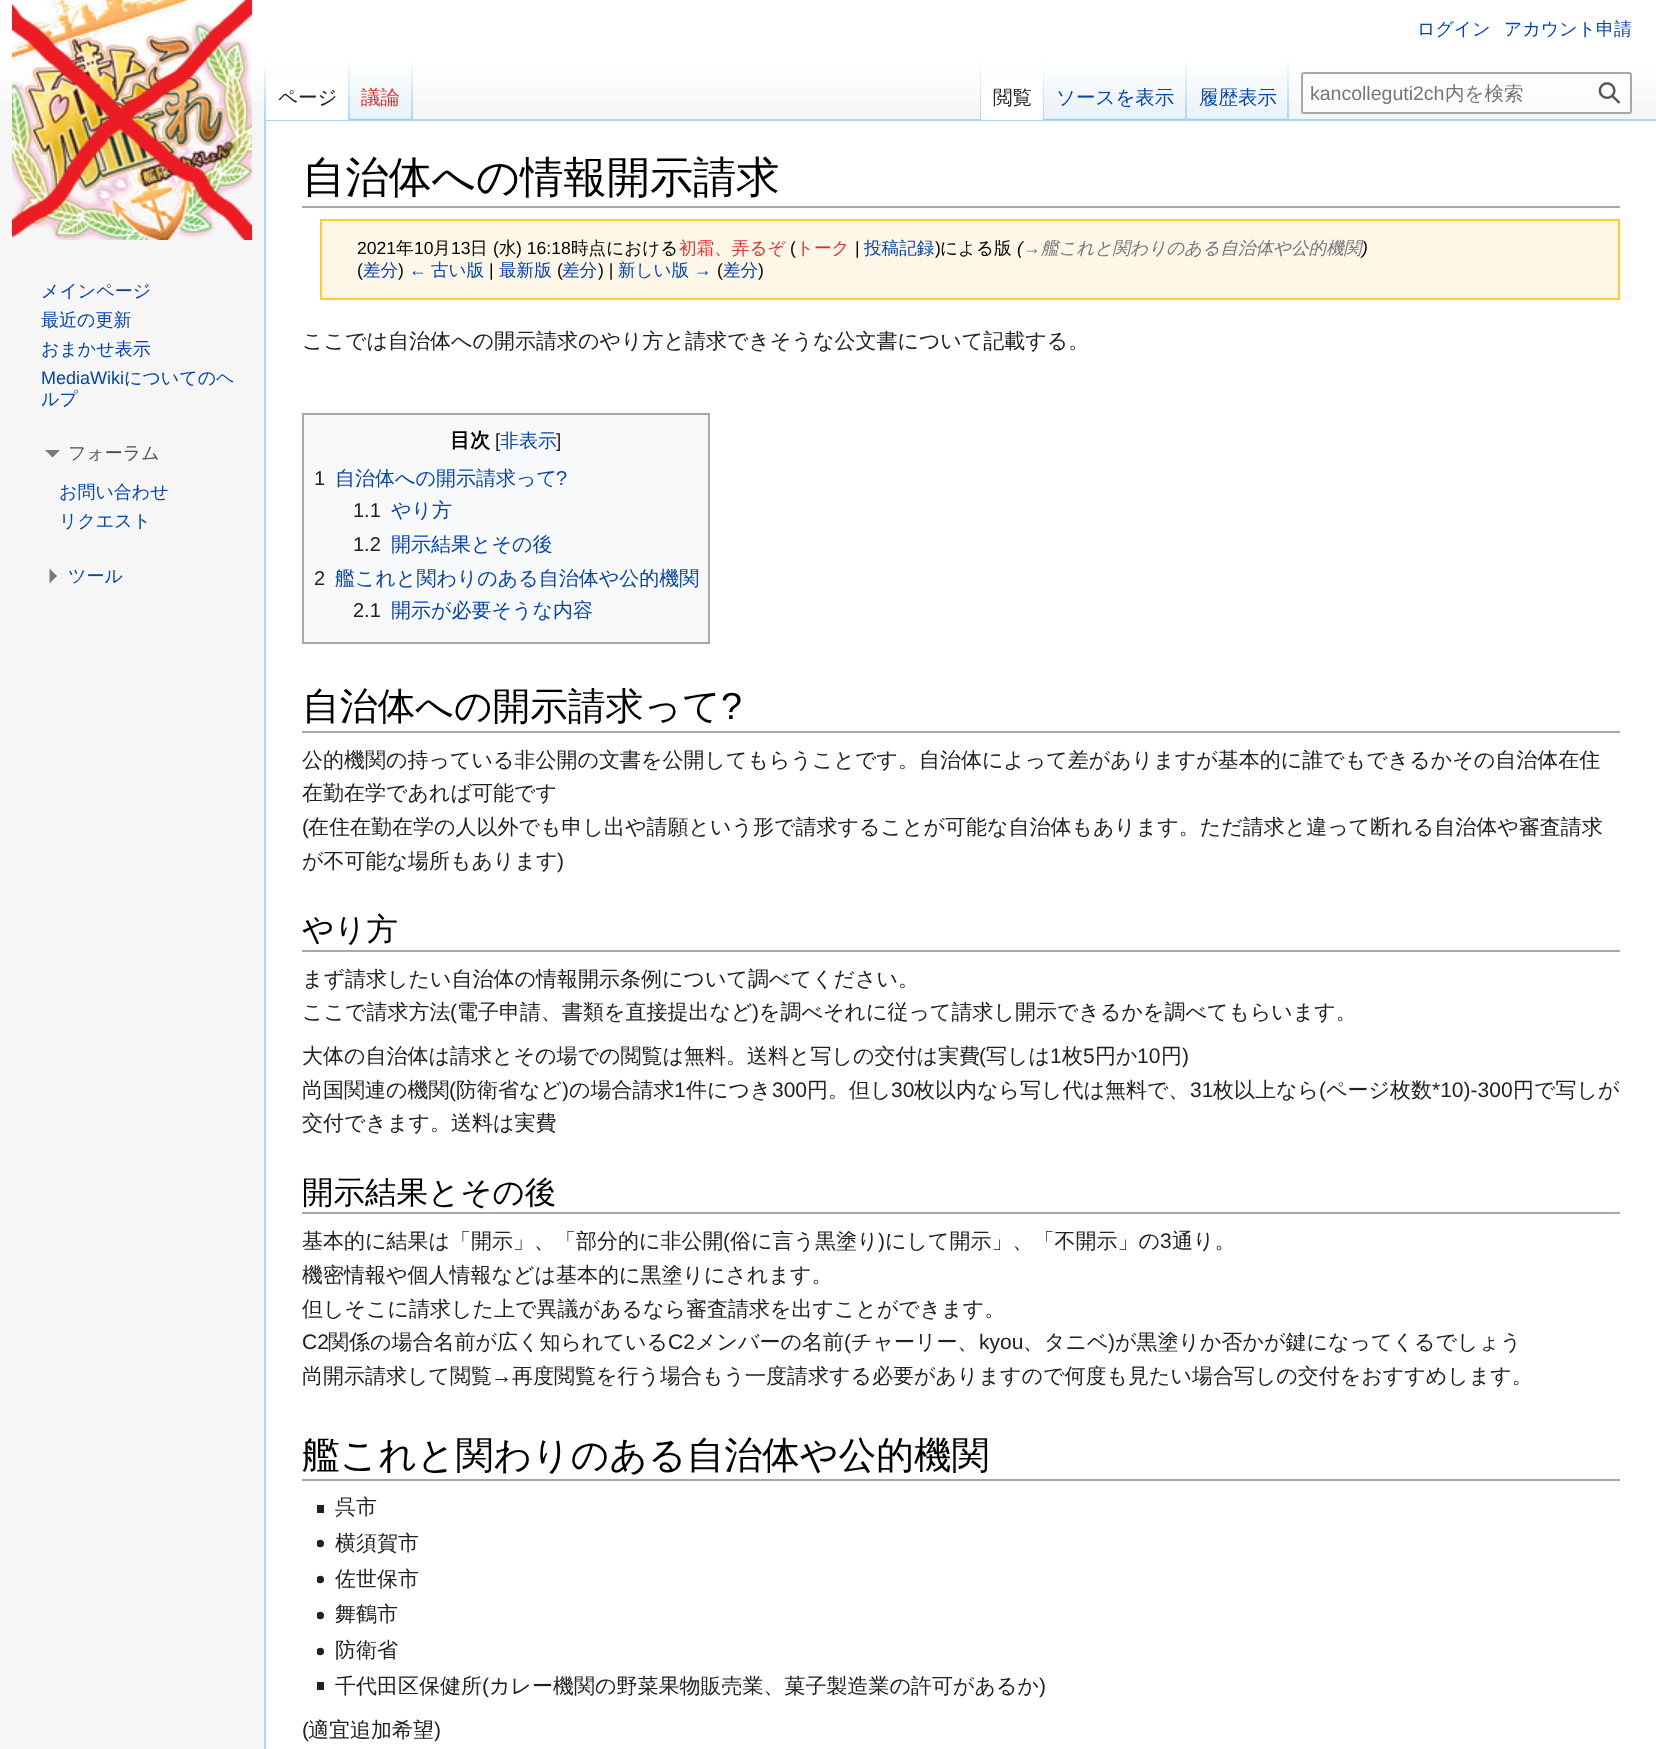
async function draw(canvas) {
	canvas.width = 1656;
	canvas.height = 1749;
	const c = canvas.getContext('2d');
	c.miterLimit = 4;
	c.fontKerning = 'normal';
	async function loadImage(src) {
		const img = new Image();
		img.src = src;
		await img.decode();
		return img;
	}
	let gradient;

	c.fillStyle = '#f6f6f6';
	c.fillRect(0, 0, 1656, 1749);
	gradient = c.createLinearGradient(828, 0, 828, 120);
	gradient.addColorStop(0.5, '#fff');
	gradient.addColorStop(1, '#f6f6f6');
	c.fillStyle = gradient;
	c.fillRect(0, 0, 1656, 103);
	c.font = '500 18px WenQuanYi Zen Hei';
	c.fillStyle = '#0645ad';
	c.fillText('ログイン', 1417, 35);
	c.fillText('アカウント申請', 1504, 35);
	c.fillStyle = '#a7d7f9';
	c.fillRect(264, 119, 1392, 2);
	c.fillRect(264, 119, 2, 1630);
	gradient = c.createLinearGradient(265, 60, 265, 120);
	gradient.addColorStop(0, '#a7d7f900');
	gradient.addColorStop(1, '#a7d7f9');
	c.fillStyle = gradient;
	c.fillRect(264, 60, 2, 60);
	c.fillStyle = '#fff';
	c.fillRect(266, 77, 82, 43);
	gradient = c.createLinearGradient(349, 60, 349, 120);
	gradient.addColorStop(0, '#fff');
	gradient.addColorStop(1, '#a7d7f9');
	c.fillStyle = gradient;
	c.fillRect(348, 60, 2, 60);
	c.font = '500 19.5px WenQuanYi Zen Hei';
	c.fillStyle = '#202122';
	c.fillText('ページ', 278, 104);
	gradient = c.createLinearGradient(381, 120, 381, 60);
	gradient.addColorStop(0, '#77c1f6');
	gradient.addColorStop(0.03, '#e8f2f8');
	gradient.addColorStop(1, '#fff');
	c.fillStyle = gradient;
	c.fillRect(350, 69, 63, 51);
	gradient = c.createLinearGradient(412, 60, 412, 120);
	gradient.addColorStop(0, '#a7d7f900');
	gradient.addColorStop(1, '#a7d7f9');
	c.fillStyle = gradient;
	c.fillRect(411, 60, 2, 60);
	c.fillStyle = '#d33';
	c.fillText('議論', 361, 104);
	gradient = c.createLinearGradient(980, 60, 980, 120);
	gradient.addColorStop(0, '#a7d7f900');
	gradient.addColorStop(1, '#a7d7f9');
	c.fillStyle = gradient;
	c.fillRect(980, 60, 1, 60);
	c.fillStyle = '#fff';
	c.fillRect(981, 77, 62, 43);
	gradient = c.createLinearGradient(1043, 60, 1043, 120);
	gradient.addColorStop(0, '#fff');
	gradient.addColorStop(1, '#a7d7f9');
	c.fillStyle = gradient;
	c.fillRect(1043, 60, 1, 60);
	c.fillStyle = '#202122';
	c.fillText('閲覧', 993, 104);
	gradient = c.createLinearGradient(1115, 120, 1115, 60);
	gradient.addColorStop(0, '#77c1f6');
	gradient.addColorStop(0.03, '#e8f2f8');
	gradient.addColorStop(1, '#fff');
	c.fillStyle = gradient;
	c.fillRect(1044, 69, 143, 51);
	gradient = c.createLinearGradient(1186, 60, 1186, 120);
	gradient.addColorStop(0, '#a7d7f900');
	gradient.addColorStop(1, '#a7d7f9');
	c.fillStyle = gradient;
	c.fillRect(1185, 60, 2, 60);
	c.fillStyle = '#0645ad';
	c.fillText('ソースを表示', 1056, 104);
	gradient = c.createLinearGradient(1238, 120, 1238, 60);
	gradient.addColorStop(0, '#77c1f6');
	gradient.addColorStop(0.03, '#e8f2f8');
	gradient.addColorStop(1, '#fff');
	c.fillStyle = gradient;
	c.fillRect(1187, 69, 102, 51);
	gradient = c.createLinearGradient(1288, 60, 1288, 120);
	gradient.addColorStop(0, '#a7d7f900');
	gradient.addColorStop(1, '#a7d7f9');
	c.fillStyle = gradient;
	c.fillRect(1287, 60, 2, 60);
	c.fillStyle = '#0645ad';
	c.fillText('履歴表示', 1199, 104);
	c.fillStyle = '#ffffff80';
	c.beginPath();
	c.roundRect(1302, 73, 329, 40, 2);
	c.fill();
	c.strokeStyle = '#a2a9b1';
	c.lineWidth = 2;
	c.stroke();
	c.font = '19.5px Liberation Sans';
	c.fillStyle = '#72777d';
	c.fillText('kancolleguti2ch', 1310, 100);
	c.font = '500 19.5px WenQuanYi Zen Hei';
	c.fillText('内を検索', 1445, 100);
	c.drawImage(await loadImage('img1.png'), 1598, 82, 23, 22);
	c.drawImage(await loadImage('img2.png'), 12, 0, 240, 240);
	c.font = '500 18px WenQuanYi Zen Hei';
	c.fillStyle = '#0645ad';
	for (const [text, x, y] of [
		['メインページ', 41, 297],
		['最近の更新', 41, 326],
		['おまかせ表示', 41, 355],
	]) {
		c.fillText(text, x, y);
	}
	c.font = '18px Liberation Sans';
	c.fillText('MediaWiki', 41, 384);
	c.font = '500 18px WenQuanYi Zen Hei';
	c.fillText('についてのヘ', 124, 384);
	c.fillText('ルプ', 41, 405);
	c.fillStyle = '#797979';
	c.beginPath();
	c.moveTo(60, 450);
	c.lineTo(52.5, 457.5);
	c.lineTo(45, 450);
	c.closePath();
	c.fill();
	c.fillStyle = '#4d4d4d';
	c.fillText('フォーラム', 68, 459);
	c.fillStyle = '#0645ad';
	c.fillText('お問い合わせ', 59, 498);
	c.fillText('リクエスト', 59, 527);
	c.fillStyle = '#797979';
	c.beginPath();
	c.moveTo(49.5, 568.5);
	c.lineTo(57, 576);
	c.lineTo(49.5, 583.5);
	c.closePath();
	c.fill();
	c.fillStyle = '#0645ad';
	c.fillText('ツール', 68, 582);
	c.fillStyle = '#fff';
	c.fillRect(266, 121, 1390, 1628);
	c.fillStyle = '#a2a9b1';
	c.fillRect(302, 206, 1318, 2);
	c.font = '500 43.25px WenQuanYi Zen Hei';
	c.fillStyle = '#000';
	c.fillText('自治体への情報開示請求', 302, 192);
	c.fillStyle = '#fef6e7';
	c.beginPath();
	c.rect(321, 220, 1298, 79);
	c.fill();
	c.strokeStyle = '#fc3';
	c.stroke();
	c.font = '17.6px Liberation Sans';
	c.fillStyle = '#000';
	c.fillText('2021', 357, 254);
	c.font = '500 17.6px WenQuanYi Zen Hei';
	c.fillText('年', 396, 254);
	c.font = '17.6px Liberation Sans';
	c.fillText('10', 414, 254);
	c.font = '500 17.6px WenQuanYi Zen Hei';
	c.fillText('月', 433, 254);
	c.font = '17.6px Liberation Sans';
	c.fillText('13', 451, 254);
	c.font = '500 17.6px WenQuanYi Zen Hei';
	c.fillText('日', 470, 254);
	c.font = '17.6px Liberation Sans';
	c.fillText('(', 493, 254);
	c.font = '500 17.6px WenQuanYi Zen Hei';
	c.fillText('水', 499, 254);
	c.font = '17.6px Liberation Sans';
	c.fillText(') 16:18', 516, 254);
	c.font = '500 17.6px WenQuanYi Zen Hei';
	c.fillText('時点における', 571, 254);
	c.fillStyle = '#d33';
	c.fillText('初霜、弄るぞ', 679, 254);
	c.font = '17.6px Liberation Sans';
	c.fillStyle = '#000';
	c.fillText('(', 790, 254);
	c.font = '500 17.6px WenQuanYi Zen Hei';
	c.fillStyle = '#d33';
	c.fillText('トーク', 796, 254);
	c.font = '17.6px Liberation Sans';
	c.fillStyle = '#000';
	c.fillText('|', 855, 254);
	c.font = '500 17.6px WenQuanYi Zen Hei';
	c.fillStyle = '#0645ad';
	c.fillText('投稿記録', 864, 254);
	c.font = '17.6px Liberation Sans';
	c.fillStyle = '#000';
	c.fillText(')', 935, 254);
	c.font = '500 17.6px WenQuanYi Zen Hei';
	c.fillText('による版', 940, 254);
	c.font = 'italic 17.6px Liberation Sans';
	c.fillText('(', 1017, 254);
	c.font = 'italic 500 17.6px WenQuanYi Zen Hei';
	c.fillStyle = '#72777d';
	c.fillText('艦これと関わりのある自治体や公的機関', 1041, 254);
	c.font = 'italic 17.6px Liberation Sans';
	c.fillText('→', 1023, 254);
	c.fillStyle = '#000';
	c.fillText(')', 1362, 254);
	c.font = '17.6px Liberation Sans';
	c.fillText('(', 357, 276);
	c.font = '500 17.6px WenQuanYi Zen Hei';
	c.fillStyle = '#0645ad';
	c.fillText('差分', 363, 276);
	c.font = '17.6px Liberation Sans';
	c.fillStyle = '#000';
	c.fillText(')', 398, 276);
	c.fillStyle = '#0645ad';
	c.fillText('←', 409, 276);
	c.font = '500 17.6px WenQuanYi Zen Hei';
	c.fillText('古い版', 431, 276);
	c.font = '17.6px Liberation Sans';
	c.fillStyle = '#000';
	c.fillText('|', 489, 276);
	c.font = '500 17.6px WenQuanYi Zen Hei';
	c.fillStyle = '#0645ad';
	c.fillText('最新版', 499, 276);
	c.font = '17.6px Liberation Sans';
	c.fillStyle = '#000';
	c.fillText('(', 557, 276);
	c.font = '500 17.6px WenQuanYi Zen Hei';
	c.fillStyle = '#0645ad';
	c.fillText('差分', 562, 276);
	c.font = '17.6px Liberation Sans';
	c.fillStyle = '#000';
	c.fillText(') |', 598, 276);
	c.font = '500 17.6px WenQuanYi Zen Hei';
	c.fillStyle = '#0645ad';
	c.fillText('新しい版', 618, 276);
	c.font = '17.6px Liberation Sans';
	c.fillText('→', 694, 276);
	c.fillStyle = '#000';
	c.fillText('(', 717, 276);
	c.font = '500 17.6px WenQuanYi Zen Hei';
	c.fillStyle = '#0645ad';
	c.fillText('差分', 723, 276);
	c.font = '17.6px Liberation Sans';
	c.fillStyle = '#000';
	c.fillText(')', 758, 276);
	c.font = '500 21px WenQuanYi Zen Hei';
	c.fillStyle = '#202122';
	c.fillText('ここでは自治体への開示請求のやり方と請求できそうな公文書について記載する。', 302, 348);
	c.fillStyle = '#f8f9fa';
	c.beginPath();
	c.rect(303, 414, 406, 229);
	c.fill();
	c.strokeStyle = '#a2a9b1';
	c.stroke();
	c.font = 'bold 20px WenQuanYi Zen Hei';
	c.fillStyle = '#000';
	c.fillText('目次', 450, 447);
	c.font = '19px Liberation Sans';
	c.fillStyle = '#202122';
	c.fillText('[', 495, 447);
	c.font = '500 19px WenQuanYi Zen Hei';
	c.fillStyle = '#0645ad';
	c.fillText('非表示', 500, 447);
	c.font = '19px Liberation Sans';
	c.fillStyle = '#202122';
	c.fillText(']', 556, 447);
	c.font = '20px Liberation Sans';
	c.fillText('1', 314, 485);
	c.font = '500 20px WenQuanYi Zen Hei';
	c.fillStyle = '#0645ad';
	c.fillText('自治体への開示請求って', 335, 485);
	c.font = '20px Liberation Sans';
	c.fillText('?', 556, 485);
	c.fillStyle = '#202122';
	c.fillText('1.1', 353, 517);
	c.font = '500 20px WenQuanYi Zen Hei';
	c.fillStyle = '#0645ad';
	c.fillText('やり方', 391, 517);
	c.font = '20px Liberation Sans';
	c.fillStyle = '#202122';
	c.fillText('1.2', 353, 551);
	c.font = '500 20px WenQuanYi Zen Hei';
	c.fillStyle = '#0645ad';
	c.fillText('開示結果とその後', 391, 551);
	c.font = '20px Liberation Sans';
	c.fillStyle = '#202122';
	c.fillText('2', 314, 585);
	c.font = '500 20px WenQuanYi Zen Hei';
	c.fillStyle = '#0645ad';
	c.fillText('艦これと関わりのある自治体や公的機関', 335, 585);
	c.font = '20px Liberation Sans';
	c.fillStyle = '#202122';
	c.fillText('2.1', 353, 617);
	c.font = '500 20px WenQuanYi Zen Hei';
	c.fillStyle = '#0645ad';
	c.fillText('開示が必要そうな内容', 391, 617);
	c.fillStyle = '#a2a9b1';
	c.fillRect(302, 731, 1318, 2);
	c.font = '500 37.75px WenQuanYi Zen Hei';
	c.fillStyle = '#000';
	c.fillText('自治体への開示請求って', 302, 719);
	c.font = '37.75px Liberation Sans';
	c.fillText('?', 721, 719);
	c.font = '500 21px WenQuanYi Zen Hei';
	c.fillStyle = '#202122';
	c.fillText('公的機関の持っている非公開の文書を公開してもらうことです。自治体によって差がありますが基本的に誰でもできるかその自治体在住', 302, 767);
	c.fillText('在勤在学であれば可能です', 302, 800);
	c.font = '21px Liberation Sans';
	c.fillText('(', 302, 834);
	c.font = '500 21px WenQuanYi Zen Hei';
	c.fillText('在住在勤在学の人以外でも申し出や請願という形で請求することが可能な自治体もあります。ただ請求と違って断れる自治体や審査請求', 308, 834);
	c.fillText('が不可能な場所もあります', 302, 868);
	c.font = '21px Liberation Sans';
	c.fillText(')', 557, 868);
	c.fillStyle = '#a2a9b1';
	c.fillRect(302, 950, 1318, 2);
	c.font = '500 31.5px WenQuanYi Zen Hei';
	c.fillStyle = '#000';
	c.fillText('やり方', 302, 940);
	c.font = '500 21px WenQuanYi Zen Hei';
	c.fillStyle = '#202122';
	c.fillText('まず請求したい自治体の情報開示条例について調べてください。', 302, 986);
	c.fillText('ここで請求方法', 302, 1019);
	c.font = '21px Liberation Sans';
	c.fillText('(', 450, 1019);
	c.font = '500 21px WenQuanYi Zen Hei';
	c.fillText('電子申請、書類を直接提出など', 457, 1019);
	c.font = '21px Liberation Sans';
	c.fillText(')', 752, 1019);
	c.font = '500 21px WenQuanYi Zen Hei';
	c.fillText('を調べそれに従って請求し開示できるかを調べてもらいます。', 759, 1019);
	c.fillText('大体の自治体は請求とその場での閲覧は無料。送料と写しの交付は実費', 302, 1063);
	c.font = '21px Liberation Sans';
	c.fillText('(', 979, 1063);
	c.font = '500 21px WenQuanYi Zen Hei';
	c.fillText('写しは', 986, 1063);
	c.font = '21px Liberation Sans';
	c.fillText('1', 1050, 1063);
	c.font = '500 21px WenQuanYi Zen Hei';
	c.fillText('枚', 1062, 1063);
	c.font = '21px Liberation Sans';
	c.fillText('5', 1083, 1063);
	c.font = '500 21px WenQuanYi Zen Hei';
	c.fillText('円か', 1095, 1063);
	c.font = '21px Liberation Sans';
	c.fillText('10', 1137, 1063);
	c.font = '500 21px WenQuanYi Zen Hei';
	c.fillText('円', 1161, 1063);
	c.font = '21px Liberation Sans';
	c.fillText(')', 1182, 1063);
	c.font = '500 21px WenQuanYi Zen Hei';
	c.fillText('尚国関連の機関', 302, 1097);
	c.font = '21px Liberation Sans';
	c.fillText('(', 449, 1097);
	c.font = '500 21px WenQuanYi Zen Hei';
	c.fillText('防衛省など', 456, 1097);
	c.font = '21px Liberation Sans';
	c.fillText(')', 562, 1097);
	c.font = '500 21px WenQuanYi Zen Hei';
	c.fillText('の場合請求', 569, 1097);
	c.font = '21px Liberation Sans';
	c.fillText('1', 674, 1097);
	c.font = '500 21px WenQuanYi Zen Hei';
	c.fillText('件につき', 686, 1097);
	c.font = '21px Liberation Sans';
	c.fillText('300', 772, 1097);
	c.font = '500 21px WenQuanYi Zen Hei';
	c.fillText('円。但し', 807, 1097);
	c.font = '21px Liberation Sans';
	c.fillText('30', 891, 1097);
	c.font = '500 21px WenQuanYi Zen Hei';
	c.fillText('枚以内なら写し代は無料で、', 914, 1097);
	c.font = '21px Liberation Sans';
	c.fillText('31', 1190, 1097);
	c.font = '500 21px WenQuanYi Zen Hei';
	c.fillText('枚以上なら', 1213, 1097);
	c.font = '21px Liberation Sans';
	c.fillText('(', 1319, 1097);
	c.font = '500 21px WenQuanYi Zen Hei';
	c.fillText('ページ枚数', 1326, 1097);
	c.font = '21px Liberation Sans';
	c.fillText('*10)-300', 1432, 1097);
	c.font = '500 21px WenQuanYi Zen Hei';
	c.fillText('円で写しが', 1513, 1097);
	c.fillText('交付できます。送料は実費', 302, 1130);
	c.fillStyle = '#a2a9b1';
	c.fillRect(302, 1212, 1318, 2);
	c.font = '500 31.5px WenQuanYi Zen Hei';
	c.fillStyle = '#000';
	c.fillText('開示結果とその後', 302, 1203);
	c.font = '500 21px WenQuanYi Zen Hei';
	c.fillStyle = '#202122';
	c.fillText('基本的に結果は「開示」、「部分的に非公開', 302, 1248);
	c.font = '21px Liberation Sans';
	c.fillText('(', 723, 1248);
	c.font = '500 21px WenQuanYi Zen Hei';
	c.fillText('俗に言う黒塗り', 730, 1248);
	c.font = '21px Liberation Sans';
	c.fillText(')', 878, 1248);
	c.font = '500 21px WenQuanYi Zen Hei';
	c.fillText('にして開示」、「不開示」の', 885, 1248);
	c.font = '21px Liberation Sans';
	c.fillText('3', 1160, 1248);
	c.font = '500 21px WenQuanYi Zen Hei';
	for (const [text, x, y] of [
		['通り。', 1172, 1248],
		['機密情報や個人情報などは基本的に黒塗りにされます。', 302, 1282],
		['但しそこに請求した上で異議があるなら審査請求を出すことができます。', 302, 1316],
	]) {
		c.fillText(text, x, y);
	}
	c.font = '21px Liberation Sans';
	c.fillText('C2', 302, 1349);
	c.font = '500 21px WenQuanYi Zen Hei';
	c.fillText('関係の場合名前が広く知られている', 328, 1349);
	c.font = '21px Liberation Sans';
	c.fillText('C2', 668, 1349);
	c.font = '500 21px WenQuanYi Zen Hei';
	c.fillText('メンバーの名前', 695, 1349);
	c.font = '21px Liberation Sans';
	c.fillText('(', 844, 1349);
	c.font = '500 21px WenQuanYi Zen Hei';
	c.fillText('チャーリー、', 851, 1349);
	c.font = '21px Liberation Sans';
	c.fillText('kyou', 979, 1349);
	c.font = '500 21px WenQuanYi Zen Hei';
	c.fillText('、タニベ', 1023, 1349);
	c.font = '21px Liberation Sans';
	c.fillText(')', 1108, 1349);
	c.font = '500 21px WenQuanYi Zen Hei';
	c.fillText('が黒塗りか否かが鍵になってくるでしょう', 1115, 1349);
	c.fillText('尚開示請求して閲覧', 302, 1383);
	c.font = '21px Liberation Sans';
	c.fillText('→', 491, 1383);
	c.font = '500 21px WenQuanYi Zen Hei';
	c.fillText('再度閲覧を行う場合もう一度請求する必要がありますので何度も見たい場合写しの交付をおすすめします。', 512, 1383);
	c.fillStyle = '#a2a9b1';
	c.fillRect(302, 1479, 1318, 2);
	c.font = '500 37.75px WenQuanYi Zen Hei';
	c.fillStyle = '#000';
	c.fillText('艦これと関わりのある自治体や公的機関', 302, 1468);
	c.fillStyle = '#202122';
	c.fillRect(317, 1505, 7, 8);
	c.font = '500 21px WenQuanYi Zen Hei';
	c.fillText('呉市', 335, 1514);
	c.drawImage(await loadImage('img3.png'), 317, 1539, 7, 9);
	c.fillText('横須賀市', 335, 1550);
	c.drawImage(await loadImage('img3.png'), 317, 1575, 7, 9);
	c.fillText('佐世保市', 335, 1586);
	c.drawImage(await loadImage('img3.png'), 317, 1611, 7, 9);
	c.fillText('舞鶴市', 335, 1621);
	c.drawImage(await loadImage('img3.png'), 317, 1647, 7, 9);
	c.fillText('防衛省', 335, 1657);
	c.fillRect(317, 1682, 7, 8);
	c.fillText('千代田区保健所', 335, 1693);
	c.font = '21px Liberation Sans';
	c.fillText('(', 482, 1693);
	c.font = '500 21px WenQuanYi Zen Hei';
	c.fillText('カレー機関の野菜果物販売業、菓子製造業の許可があるか', 489, 1693);
	c.font = '21px Liberation Sans';
	c.fillText(')', 1039, 1693);
	c.fillText('(', 302, 1737);
	c.font = '500 21px WenQuanYi Zen Hei';
	c.fillText('適宜追加希望', 308, 1737);
	c.font = '21px Liberation Sans';
	c.fillText(')', 434, 1737);
}

draw(document.querySelector('canvas'));
